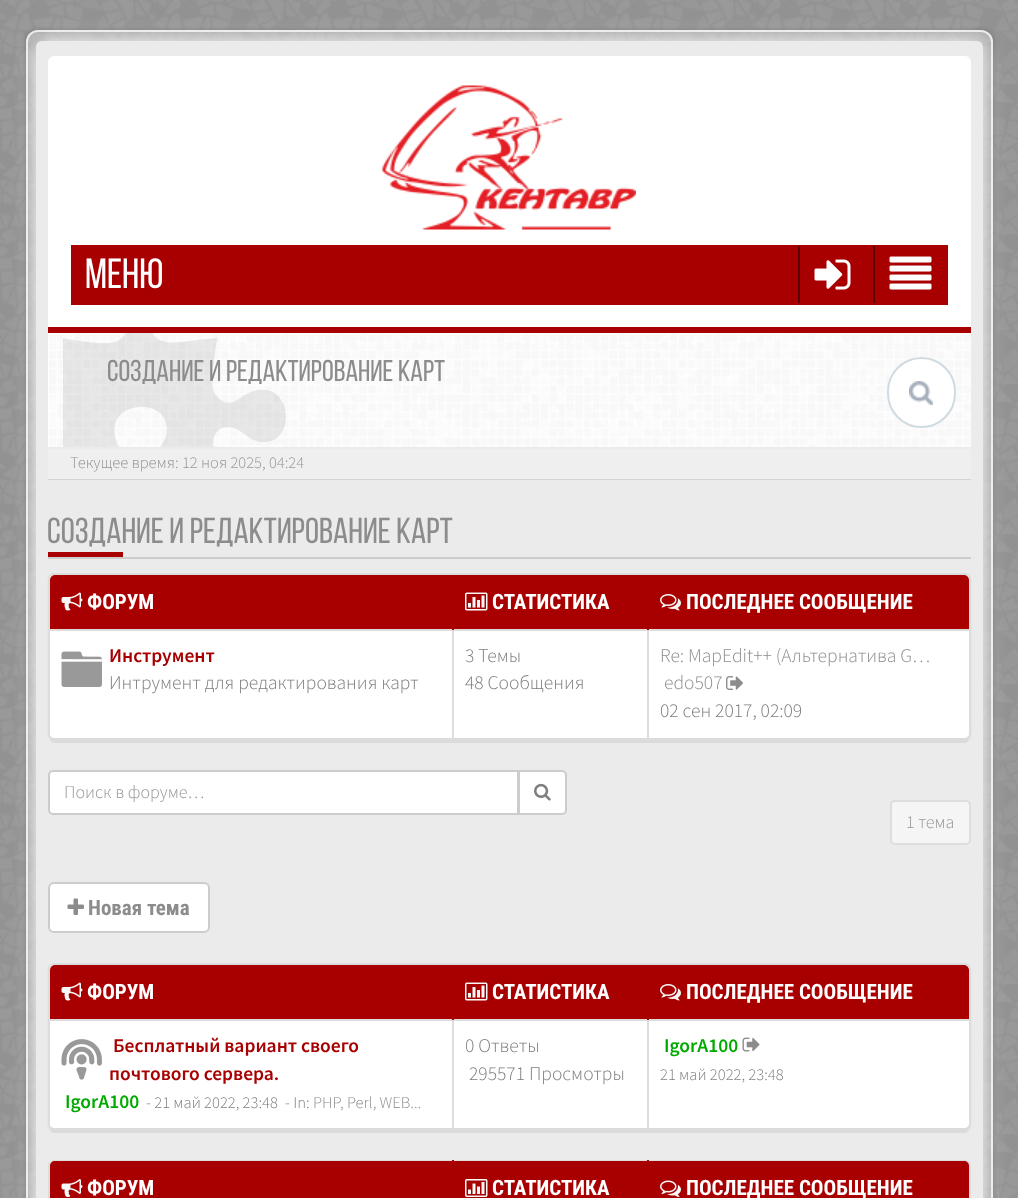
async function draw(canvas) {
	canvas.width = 1018;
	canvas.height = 1198;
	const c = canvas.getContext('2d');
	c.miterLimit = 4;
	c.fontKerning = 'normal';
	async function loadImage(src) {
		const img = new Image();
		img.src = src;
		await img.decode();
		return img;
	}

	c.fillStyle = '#999';
	c.fillRect(0, 0, 1018, 1198);
	c.drawImage(await loadImage('img1.png'), 0, 0, 1018, 1198);
	c.save();
	c.beginPath();
	c.moveTo(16, 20);
	c.lineTo(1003, 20);
	c.lineTo(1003, 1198);
	c.lineTo(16, 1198);
	c.closePath();
	c.moveTo(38, 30);
	c.lineTo(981, 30);
	c.bezierCurveTo(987.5, 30, 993, 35.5, 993, 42);
	c.lineTo(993, 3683);
	c.bezierCurveTo(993, 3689.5, 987.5, 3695, 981, 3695);
	c.lineTo(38, 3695);
	c.bezierCurveTo(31.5, 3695, 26, 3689.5, 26, 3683);
	c.lineTo(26, 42);
	c.bezierCurveTo(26, 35.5, 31.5, 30, 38, 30);
	c.closePath();
	c.clip('evenodd');
	c.fillStyle = '#32323280';
	c.filter = 'blur(3px)';
	c.beginPath();
	c.roundRect(26, 30, 967, 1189, 12);
	c.fill();
	c.filter = 'none';
	c.restore();
	c.fillStyle = '#ffffff33';
	c.beginPath();
	c.roundRect(26, 30, 967, 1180, 12);
	c.fill();
	c.beginPath();
	c.roundRect(27, 31, 965, 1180, 11);
	c.strokeStyle = '#ffffffbf';
	c.lineWidth = 2;
	c.stroke();
	c.fillStyle = '#fff';
	c.filter = 'blur(10.5px)';
	c.beginPath();
	c.roundRect(36, 41, 947, 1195, 6);
	c.fill();
	c.filter = 'none';
	c.fillStyle = '#ebebeb';
	c.beginPath();
	c.roundRect(36, 41, 947, 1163, 6);
	c.fill();
	c.fillStyle = '#fff';
	c.beginPath();
	c.roundRect(48, 56, 923, 271, [6, 6, 0, 0]);
	c.fill();
	c.drawImage(await loadImage('img2.png'), 382, 85, 254, 145);
	c.fillStyle = '#a80000';
	c.fillRect(71, 245, 877, 60);
	c.font = '42px Bebas Neue';
	c.fillStyle = '#fff';
	c.fillText('МЕНЮ', 85, 288);
	c.fillStyle = '#5c0000';
	c.fillRect(798, 246, 2, 57);
	c.drawImage(await loadImage('img3.png'), 814, 259, 37, 31);
	c.fillRect(873, 246, 2, 57);
	c.drawImage(await loadImage('img4.png'), 889, 256, 43, 34);
	c.fillStyle = '#fff';
	c.fillRect(48, 333, 923, 114);
	c.drawImage(await loadImage('img5.png'), 49, 333, 922, 114);
	c.fillStyle = '#a80000';
	c.fillRect(48, 327, 923, 6);
	c.drawImage(await loadImage('img6.png'), 63, 333, 223, 114);
	c.fillStyle = '#fff';
	c.beginPath();
	c.roundRect(887, 357, 69, 71, 34.5);
	c.fill();
	c.drawImage(await loadImage('img7.png'), 909, 381, 24, 24);
	c.beginPath();
	c.roundRect(888, 358, 67, 69, 33.5);
	c.strokeStyle = '#cfdae1';
	c.stroke();
	c.font = '30px Bebas Neue';
	c.fillStyle = '#8c8c8c';
	c.fillText('СОЗДАНИЕ И РЕДАКТИРОВАНИЕ КАРТ', 107, 381);
	c.fillStyle = '#d4d4d4';
	c.beginPath();
	c.moveTo(48, 478);
	c.lineTo(48, 480);
	c.lineTo(971, 480);
	c.lineTo(971, 450);
	c.lineTo(970, 450);
	c.lineTo(970, 478);
	c.closePath();
	c.fill();
	c.fillStyle = '#efefef';
	c.fillRect(48, 449, 923, 30);
	c.font = '300 16.5px Source Sans Pro';
	c.fillStyle = '#979595';
	c.fillText('Текущее время: 12 ноя 2025, 04:24', 70, 468);
	c.fillStyle = '#ccc';
	c.fillRect(48, 557, 923, 2);
	c.font = '36px Bebas Neue';
	c.fillStyle = '#8c8c8c';
	c.fillText('СОЗДАНИЕ И РЕДАКТИРОВАНИЕ КАРТ', 47, 543);
	c.fillStyle = '#a80000';
	c.fillRect(48, 552, 75, 5);
	c.fillStyle = '#0000000d';
	c.filter = 'blur(1px)';
	c.beginPath();
	c.roundRect(48, 575, 923, 166, 6);
	c.fill();
	c.filter = 'none';
	c.fillStyle = '#fff';
	c.beginPath();
	c.roundRect(49, 574, 921, 165, 5);
	c.fill();
	c.strokeStyle = '#ddd';
	c.stroke();
	c.fillStyle = '#dbdbdb';
	c.beginPath();
	c.moveTo(50, 736);
	c.lineTo(50, 738);
	c.bezierCurveTo(50, 741, 52, 743, 55, 743);
	c.lineTo(964, 743);
	c.bezierCurveTo(967, 743, 969, 741, 969, 738);
	c.lineTo(969, 734);
	c.bezierCurveTo(969, 736, 967, 738, 964, 738);
	c.lineTo(54, 738);
	c.bezierCurveTo(52, 738, 51, 737, 50, 736);
	c.closePath();
	c.fill();
	c.fillStyle = '#a80000';
	c.beginPath();
	c.roundRect(50, 575, 403, 55, [5, 0, 0, 0]);
	c.fill();
	c.drawImage(await loadImage('img8.png'), 61, 592, 22, 19);
	c.font = 'bold 21px Roboto Condensed';
	c.fillStyle = '#fff';
	c.fillText('ФОРУМ', 87, 609);
	c.fillStyle = '#a80000';
	c.fillRect(454, 575, 193, 54);
	c.fillStyle = '#fff';
	c.beginPath();
	c.roundRect(50, 630, 403, 108, [0, 0, 0, 5]);
	c.fill();
	c.fillStyle = '#a80000';
	c.beginPath();
	c.roundRect(648, 575, 321, 55, [0, 5, 0, 0]);
	c.fill();
	c.fillStyle = '#fff';
	c.beginPath();
	c.roundRect(648, 630, 321, 108, [0, 0, 5, 0]);
	c.fill();
	for (const [x, y, w, h, color] of [
		[647, 629, 324, 2, '#ddd'],
		[647, 629, 2, 109, '#ddd'],
		[452, 629, 196, 2, '#ddd'],
		[452, 629, 2, 109, '#ddd'],
		[48, 629, 405, 2, '#ddd'],
		[452, 575, 2, 55, '#a80000'],
	]) {
		c.fillStyle = color;
		c.fillRect(x, y, w, h);
	}
	c.drawImage(await loadImage('img9.png'), 465, 592, 23, 19);
	c.fillStyle = '#fff';
	c.fillText('СТАТИСТИКА', 492, 609);
	c.fillStyle = '#a80000';
	c.fillRect(647, 575, 2, 55);
	c.drawImage(await loadImage('img10.png'), 660, 594, 21, 17);
	c.fillStyle = '#fff';
	c.fillText('ПОСЛЕДНЕЕ СООБЩЕНИЕ', 686, 609);
	c.drawImage(await loadImage('img11.png'), 61, 651, 41, 36);
	c.font = '600 19.5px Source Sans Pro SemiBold';
	c.fillStyle = '#a80000';
	c.fillText('Инструмент', 109, 662);
	c.font = '300 19.5px Source Sans Pro';
	c.fillStyle = '#7c7c7c';
	for (const [text, x, y] of [
		['Интрумент для редактирования карт', 109, 689],
		['3 Темы', 465, 662],
		['48 Сообщения', 465, 689],
	]) {
		c.fillText(text, x, y);
	}
	c.fillStyle = '#8c8c8c';
	c.fillText('Re: MapEdit++ (Альтернатива G…', 660, 662);
	c.fillText('edo507', 664, 689);
	c.drawImage(await loadImage('img12.png'), 726, 676, 17, 14);
	c.fillStyle = '#7c7c7c';
	c.fillText('02 сен 2017, 02:09', 660, 717);
	c.fillStyle = '#fff';
	c.beginPath();
	c.roundRect(49, 771, 469, 43, [4, 0, 0, 4]);
	c.fill();
	c.strokeStyle = '#ccc';
	c.stroke();
	c.font = '300 18px Source Sans Pro';
	c.fillStyle = '#979595';
	c.fillText('Поиск в форуме…', 64, 798);
	c.fillStyle = '#fff';
	c.beginPath();
	c.roundRect(519, 771, 47, 43, [0, 4, 4, 0]);
	c.fill();
	c.stroke();
	c.drawImage(await loadImage('img13.png'), 534, 783, 17, 18);
	c.fillStyle = '#f5f5f5';
	c.beginPath();
	c.roundRect(891, 801, 79, 43, 4);
	c.fill();
	c.strokeStyle = '#ddd';
	c.stroke();
	c.fillStyle = '#979595';
	c.fillText('1 тема', 906, 828);
	c.fillStyle = '#fff';
	c.beginPath();
	c.roundRect(49, 883, 160, 49, 5);
	c.fill();
	c.strokeStyle = '#ccc';
	c.stroke();
	c.drawImage(await loadImage('img14.png'), 67, 898, 17, 17);
	c.font = 'bold 21px Roboto Condensed';
	c.fillStyle = '#8c8c8c';
	c.fillText('Новая тема', 88, 915);
	c.fillStyle = '#0000000d';
	c.filter = 'blur(1px)';
	c.beginPath();
	c.roundRect(48, 965, 923, 166, 6);
	c.fill();
	c.filter = 'none';
	c.fillStyle = '#fff';
	c.beginPath();
	c.roundRect(49, 964, 921, 165, 5);
	c.fill();
	c.strokeStyle = '#ddd';
	c.stroke();
	c.fillStyle = '#dbdbdb';
	c.beginPath();
	c.moveTo(50, 1126);
	c.lineTo(50, 1128);
	c.bezierCurveTo(50, 1131, 52, 1133, 55, 1133);
	c.lineTo(964, 1133);
	c.bezierCurveTo(967, 1133, 969, 1131, 969, 1128);
	c.lineTo(969, 1124);
	c.bezierCurveTo(969, 1126, 967, 1128, 964, 1128);
	c.lineTo(54, 1128);
	c.bezierCurveTo(52, 1128, 51, 1127, 50, 1126);
	c.closePath();
	c.fill();
	c.fillStyle = '#a80000';
	c.beginPath();
	c.roundRect(50, 965, 403, 55, [5, 0, 0, 0]);
	c.fill();
	c.drawImage(await loadImage('img8.png'), 61, 982, 22, 19);
	c.fillStyle = '#fff';
	c.fillText('ФОРУМ', 87, 999);
	c.fillStyle = '#a80000';
	c.fillRect(454, 965, 193, 54);
	c.fillStyle = '#fff';
	c.beginPath();
	c.roundRect(50, 1020, 403, 108, [0, 0, 0, 5]);
	c.fill();
	c.fillStyle = '#a80000';
	c.beginPath();
	c.roundRect(648, 965, 321, 55, [0, 5, 0, 0]);
	c.fill();
	c.fillStyle = '#fff';
	c.beginPath();
	c.roundRect(648, 1020, 321, 108, [0, 0, 5, 0]);
	c.fill();
	for (const [x, y, w, h, color] of [
		[647, 1019, 324, 2, '#ddd'],
		[647, 1019, 2, 109, '#ddd'],
		[452, 1019, 196, 2, '#ddd'],
		[452, 1019, 2, 109, '#ddd'],
		[48, 1019, 405, 2, '#ddd'],
		[452, 965, 2, 55, '#a80000'],
	]) {
		c.fillStyle = color;
		c.fillRect(x, y, w, h);
	}
	c.drawImage(await loadImage('img9.png'), 465, 982, 23, 19);
	c.fillStyle = '#fff';
	c.fillText('СТАТИСТИКА', 492, 999);
	c.fillStyle = '#a80000';
	c.fillRect(647, 965, 2, 55);
	c.drawImage(await loadImage('img10.png'), 660, 984, 21, 17);
	c.fillStyle = '#fff';
	c.fillText('ПОСЛЕДНЕЕ СООБЩЕНИЕ', 686, 999);
	c.font = '600 19.5px Source Sans Pro SemiBold';
	c.fillStyle = '#a80000';
	c.fillText('Бесплатный вариант своего', 113, 1052);
	c.fillText('почтового сервера.', 109, 1080);
	c.fillStyle = '#0a0';
	c.fillText('IgorA100', 65, 1108);
	c.font = '300 16.5px Source Sans Pro';
	c.fillStyle = '#7c7c7c';
	c.fillText('- 21 май 2022, 23:48', 146, 1108);
	c.fillText('- In:', 285, 1108);
	c.fillStyle = '#8c8c8c';
	c.fillText('PHP, Perl, WEB...', 313, 1108);
	c.drawImage(await loadImage('img15.png'), 61, 1039, 41, 41);
	c.font = '300 19.5px Source Sans Pro';
	c.fillStyle = '#7c7c7c';
	c.fillText('0 Ответы', 465, 1052);
	c.fillText('295571 Просмотры', 469, 1080);
	c.font = '600 19.5px Source Sans Pro SemiBold';
	c.fillStyle = '#0a0';
	c.fillText('IgorA100', 664, 1052);
	c.drawImage(await loadImage('img16.png'), 742, 1037, 18, 15);
	c.font = '300 16.5px Source Sans Pro';
	c.fillStyle = '#7c7c7c';
	c.fillText('21 май 2022, 23:48', 660, 1080);
	c.beginPath();
	c.roundRect(49, 1161, 921, 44, 5);
	c.stroke();
	c.fillStyle = '#a80000';
	c.beginPath();
	c.moveTo(55, 1161);
	c.lineTo(453, 1161);
	c.lineTo(453, 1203);
	c.lineTo(50, 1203);
	c.lineTo(50, 1166);
	c.bezierCurveTo(50, 1163, 52, 1161, 55, 1161);
	c.closePath();
	c.fill();
	c.drawImage(await loadImage('img17.png'), 61, 1179, 22, 18);
	c.font = 'bold 21px Roboto Condensed';
	c.fillStyle = '#fff';
	c.fillText('ФОРУМ', 87, 1195);
	c.fillStyle = '#a80000';
	c.fillRect(454, 1161, 193, 37);
	c.fillRect(452, 1160, 2, 38);
	c.drawImage(await loadImage('img18.png'), 465, 1179, 23, 18);
	c.fillStyle = '#fff';
	c.fillText('СТАТИСТИКА', 492, 1195);
	c.fillStyle = '#a80000';
	c.beginPath();
	c.moveTo(648, 1161);
	c.lineTo(964, 1161);
	c.bezierCurveTo(967, 1161, 969, 1163, 969, 1166);
	c.lineTo(969, 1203);
	c.lineTo(648, 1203);
	c.closePath();
	c.fill();
	c.fillRect(647, 1160, 2, 38);
	c.drawImage(await loadImage('img19.png'), 660, 1180, 21, 17);
	c.fillStyle = '#fff';
	c.fillText('ПОСЛЕДНЕЕ СООБЩЕНИЕ', 686, 1195);
}

draw(document.querySelector('canvas'));
